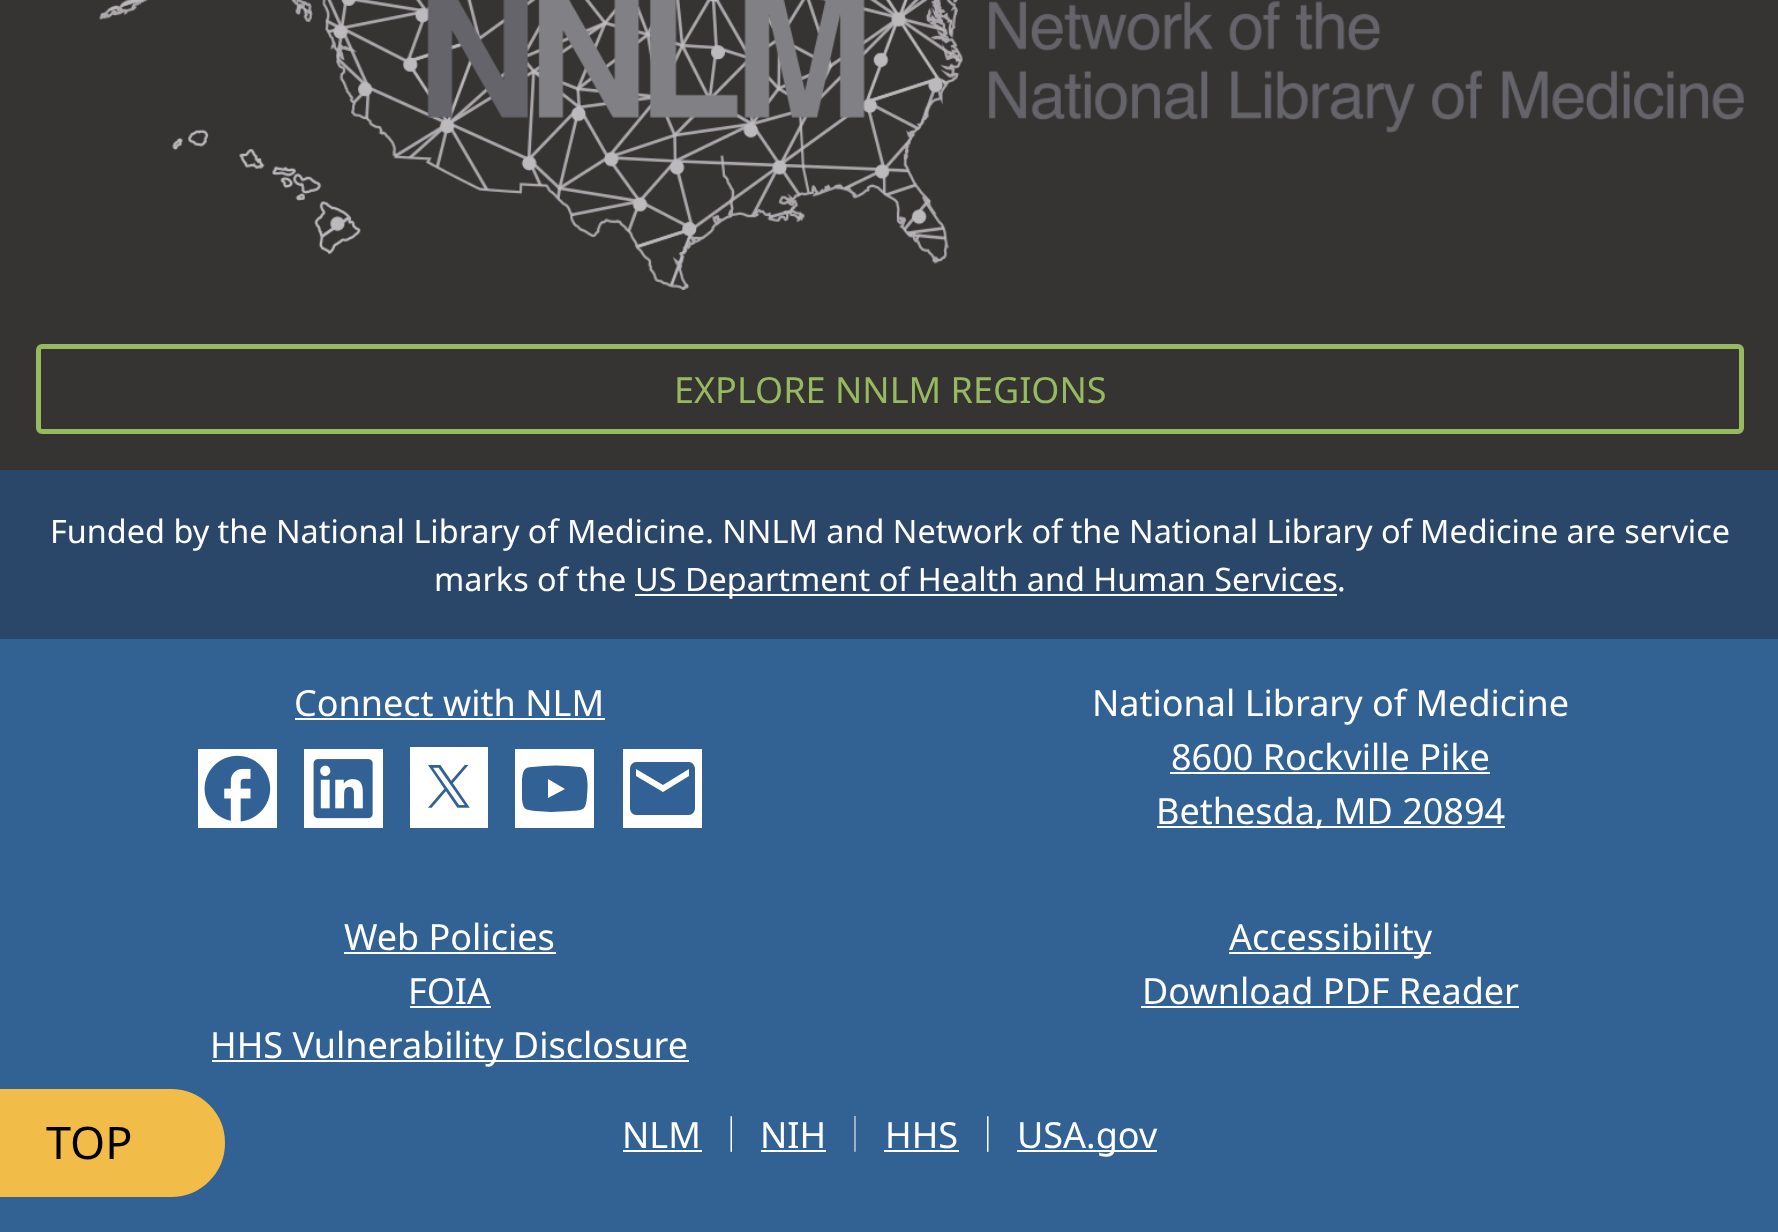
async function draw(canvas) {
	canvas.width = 1778;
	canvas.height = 1232;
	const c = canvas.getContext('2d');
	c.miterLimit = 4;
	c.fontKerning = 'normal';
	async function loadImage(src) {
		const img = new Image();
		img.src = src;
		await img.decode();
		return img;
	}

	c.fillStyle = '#353432';
	c.fillRect(0, 0, 1778, 1232);
	c.drawImage(await loadImage('img1.png'), 99, 0, 1645, 290);
	c.beginPath();
	c.roundRect(38.5, 346.5, 1703, 85, 3.5);
	c.strokeStyle = '#97b95f';
	c.lineWidth = 5;
	c.stroke();
	c.font = '36px Noto Sans';
	c.fillStyle = '#97b95f';
	c.fillText('EXPLORE NNLM REGIONS', 674, 403);
	c.fillStyle = '#2a4668';
	c.fillRect(0, 470, 1778, 169);
	c.font = '32.4px Noto Sans';
	c.fillStyle = '#fff';
	c.fillText('Funded by the National Library of Medicine. NNLM and Network of the National Library of Medicine are service', 50, 543);
	c.fillText('marks of the', 434, 591);
	c.fillRect(635, 594, 702, 2);
	c.fillText('US Department of Health and Human Services', 635, 591);
	c.fillText('.', 1337, 591);
	c.fillStyle = '#326294';
	c.fillRect(0, 639, 1778, 593);
	c.font = '36px Noto Sans';
	c.fillStyle = '#fff';
	c.fillText('Connect with NLM', 294, 716);
	c.fillRect(295, 718, 310, 2);
	c.fillRect(198, 749, 79, 79);
	c.drawImage(await loadImage('img2.png'), 204, 755, 67, 67);
	c.fillRect(304, 749, 79, 79);
	c.drawImage(await loadImage('img3.png'), 313, 759, 60, 60);
	c.fillRect(410, 747, 78, 81);
	c.drawImage(await loadImage('img4.png'), 428, 765, 42, 43);
	c.fillRect(515, 749, 79, 79);
	c.fillStyle = '#326295';
	c.beginPath();
	c.moveTo(580, 767);
	c.bezierCurveTo(589, 769, 588, 789, 587, 796);
	c.bezierCurveTo(586, 810, 584, 810, 571, 811);
	c.lineTo(551, 812);
	c.lineTo(535, 811);
	c.bezierCurveTo(525, 810, 523, 809, 522, 799);
	c.bezierCurveTo(522, 792, 522, 785, 522, 779);
	c.bezierCurveTo(523, 771, 524, 767, 532, 767);
	c.bezierCurveTo(548, 765, 564, 765, 580, 767);
	c.closePath();
	c.moveTo(548, 779);
	c.lineTo(548, 798);
	c.lineTo(565, 789);
	c.closePath();
	c.fill();
	c.fillStyle = '#fff';
	c.fillRect(623, 749, 79, 79);
	c.fillStyle = '#326295';
	c.beginPath();
	c.moveTo(689, 762);
	c.lineTo(636, 762);
	c.bezierCurveTo(633, 762, 630, 765, 630, 769);
	c.lineTo(630, 808);
	c.bezierCurveTo(630, 812, 633, 815, 636, 815);
	c.lineTo(689, 815);
	c.bezierCurveTo(692, 815, 695, 812, 695, 808);
	c.lineTo(695, 769);
	c.bezierCurveTo(695, 765, 692, 762, 689, 762);
	c.closePath();
	c.moveTo(689, 776);
	c.lineTo(663, 792);
	c.lineTo(636, 776);
	c.lineTo(636, 769);
	c.lineTo(663, 785);
	c.lineTo(689, 769);
	c.closePath();
	c.fill();
	c.fillStyle = '#fff';
	c.fillText('National Library of Medicine', 1092, 716);
	c.fillText('8600 Rockville Pike', 1171, 770);
	c.fillRect(1170, 772, 320, 2);
	c.fillRect(1157, 826, 348, 2);
	c.fillText('Bethesda, MD 20894', 1156, 824);
	c.fillText('Web Policies', 344, 950);
	c.fillRect(344, 952, 212, 2);
	c.fillText('FOIA', 408, 1004);
	c.fillRect(410, 1006, 81, 2);
	c.fillRect(212, 1060, 477, 2);
	c.fillText('HHS Vulnerability Disclosure', 210, 1058);
	c.fillRect(1229, 952, 202, 2);
	c.fillText('Accessibility', 1229, 950);
	c.fillText('Download PDF Reader', 1142, 1004);
	c.fillRect(1141, 1006, 378, 2);
	c.fillText('NLM', 622, 1148);
	c.fillRect(623, 1150, 79, 2);
	c.beginPath();
	c.moveTo(731, 1116);
	c.lineTo(732, 1116.5);
	c.lineTo(732, 1151.5);
	c.lineTo(731.5, 1152);
	c.bezierCurveTo(731, 1152, 730.5, 1152, 730.5, 1151.5);
	c.lineTo(730.5, 1116.5);
	c.closePath();
	c.fill();
	c.fillText('NIH', 760, 1148);
	c.fillRect(761, 1150, 65, 2);
	c.beginPath();
	c.moveTo(855, 1116);
	c.lineTo(855.5, 1116.5);
	c.lineTo(855.5, 1151.5);
	c.lineTo(855, 1152);
	c.bezierCurveTo(855, 1152, 854.5, 1152, 854.5, 1151.5);
	c.lineTo(854.5, 1116.5);
	c.closePath();
	c.fill();
	c.fillText('HHS', 885, 1148);
	c.fillRect(884, 1150, 75, 2);
	c.beginPath();
	c.moveTo(988, 1116);
	c.lineTo(988.5, 1116.5);
	c.lineTo(988.5, 1151.5);
	c.bezierCurveTo(988.5, 1152, 988, 1152, 987.5, 1152);
	c.lineTo(987, 1151.5);
	c.lineTo(987, 1116.5);
	c.closePath();
	c.fill();
	c.fillRect(1017, 1150, 140, 2);
	c.fillText('USA.gov', 1017, 1148);
	c.fillStyle = '#f2bc49';
	c.beginPath();
	c.roundRect(1, 1090, 223, 106, [0, 53, 53, 0]);
	c.fill();
	c.strokeStyle = '#f2bc49';
	c.lineWidth = 2;
	c.stroke();
	c.font = '45px Noto Sans';
	c.fillStyle = '#000';
	c.fillText('TOP', 46, 1159);
}

draw(document.querySelector('canvas'));
